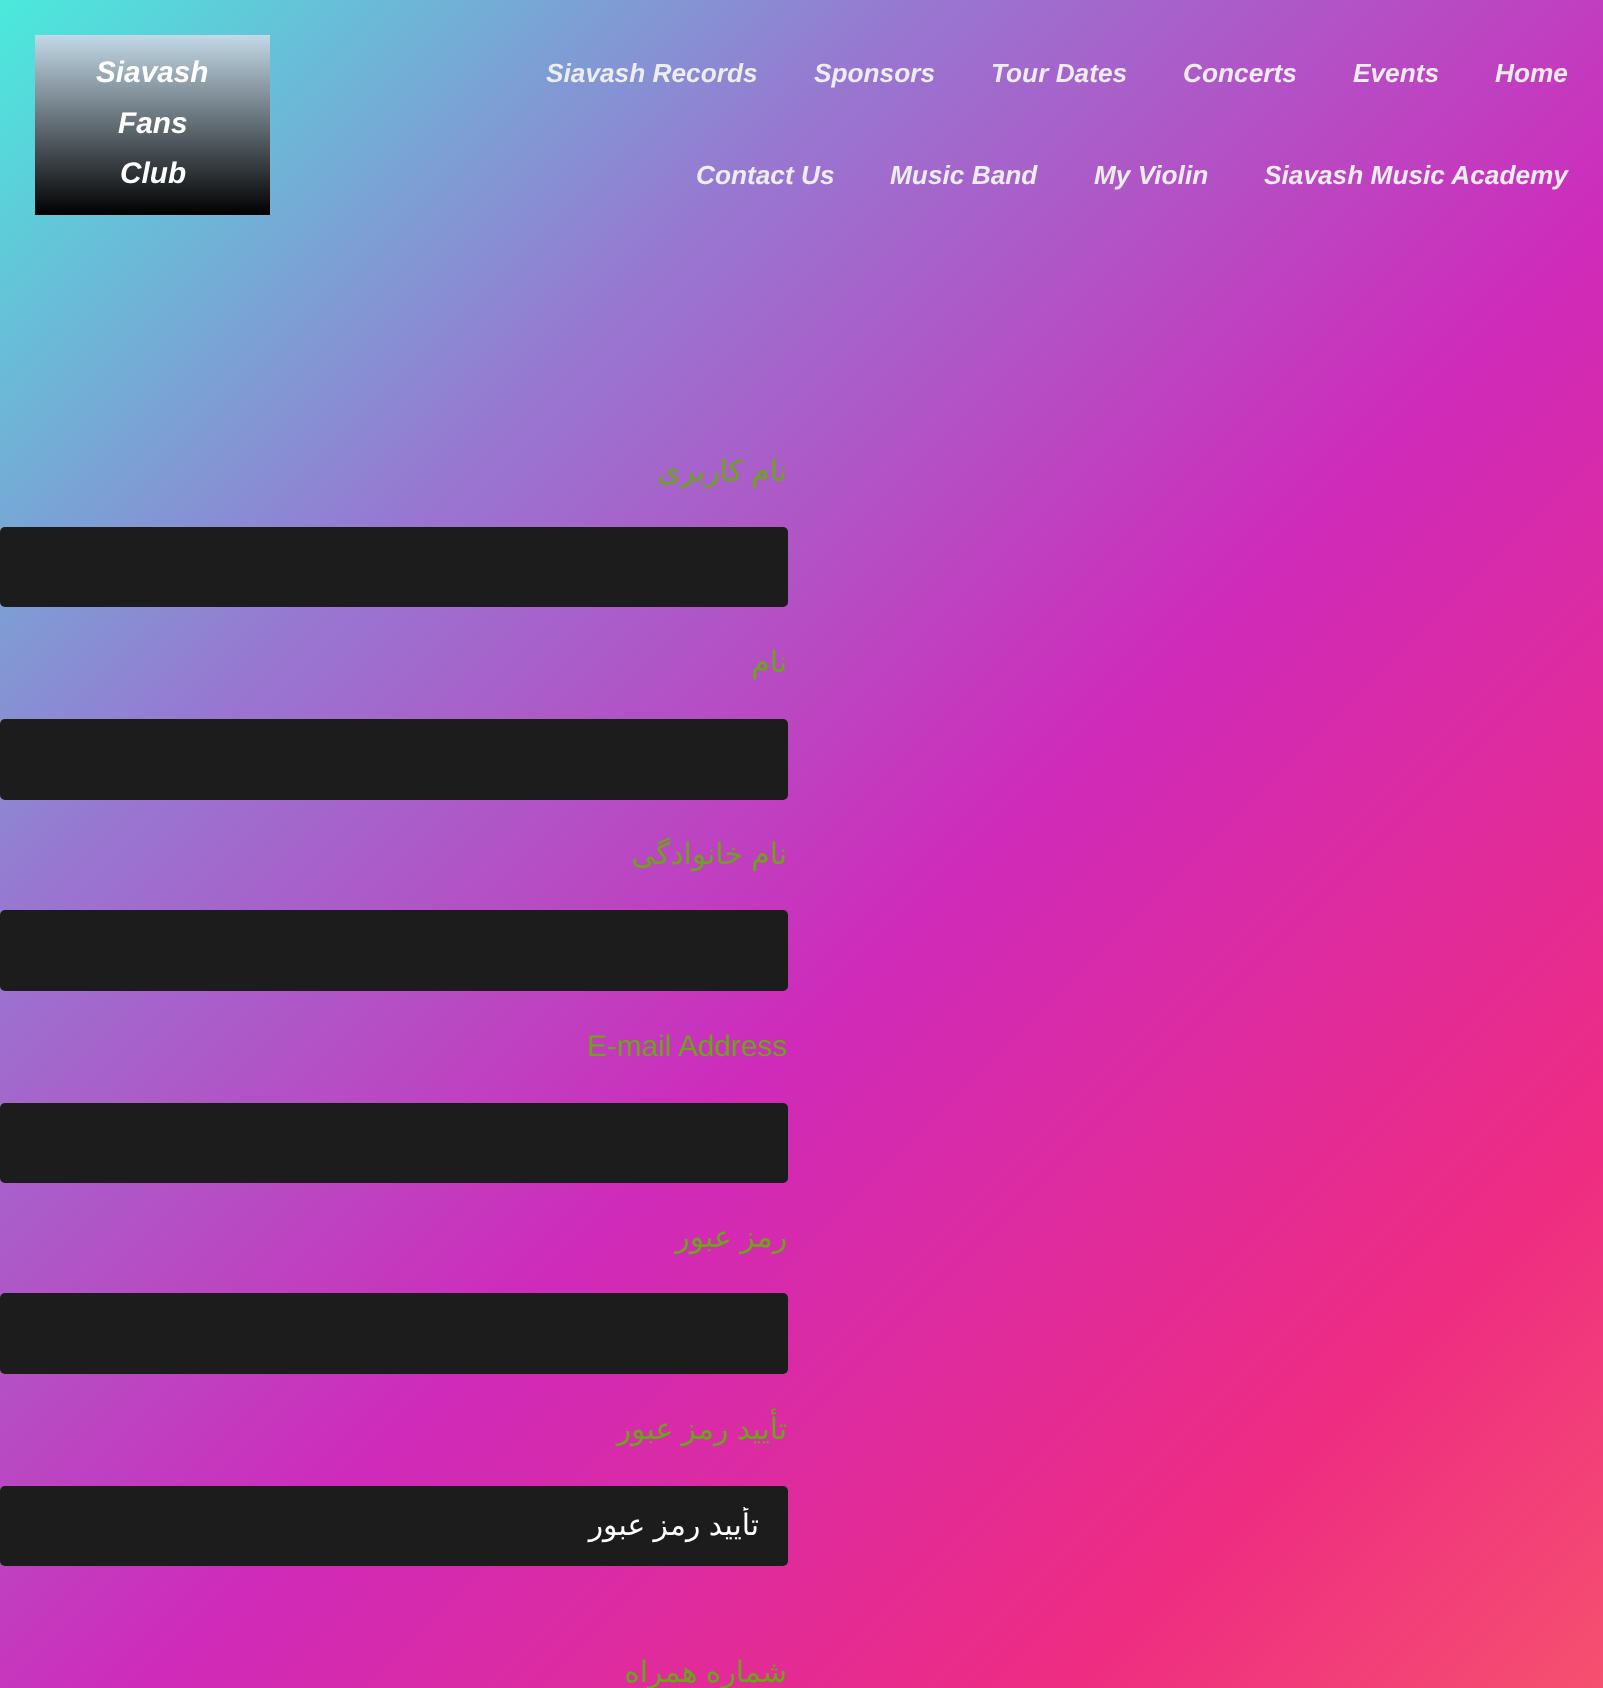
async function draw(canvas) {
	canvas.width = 1603;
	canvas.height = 1688;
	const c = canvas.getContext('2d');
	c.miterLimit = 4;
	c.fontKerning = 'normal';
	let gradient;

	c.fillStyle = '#fff';
	c.fillRect(0, 0, 1603, 1688);
	gradient = c.createLinearGradient(-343, 343, 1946, 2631);
	gradient.addColorStop(0, '#4aeadc');
	gradient.addColorStop(0.2, '#9778d1');
	gradient.addColorStop(0.4, '#cf2aba');
	gradient.addColorStop(0.6, '#ee2c82');
	gradient.addColorStop(0.8, '#fb6962');
	gradient.addColorStop(1, '#fef84c');
	c.fillStyle = gradient;
	c.fillRect(0, 0, 1603, 1688);
	gradient = c.createLinearGradient(152, 35, 152, 215);
	gradient.addColorStop(0, '#c3d9e7');
	gradient.addColorStop(1, '#000');
	c.fillStyle = gradient;
	c.fillRect(35, 35, 235, 180);
	c.font = 'italic bold 29.75px Liberation Sans';
	c.fillStyle = '#fff';
	for (const [text, x, y] of [
		['Siavash', 96, 82],
		['Fans', 118, 133],
		['Club', 120, 183],
	]) {
		c.fillText(text, x, y);
	}
	c.font = 'italic bold 26.25px Liberation Sans';
	c.fillStyle = '#ededed';
	for (const [text, x, y] of [
		['Siavash Records', 546, 82],
		['Sponsors', 814, 82],
		['Tour Dates', 991, 82],
		['Concerts', 1183, 82],
		['Events', 1353, 82],
		['Home', 1495, 82],
		['Contact Us', 696, 184],
		['Music Band', 890, 184],
		['My Violin', 1094, 184],
		['Siavash Music Academy', 1264, 184],
	]) {
		c.fillText(text, x, y);
	}
	c.wordSpacing = '-1px';
	c.direction = 'rtl';
	c.font = '29.75px DejaVu Sans';
	c.fillStyle = '#6ba518';
	c.fillText('نام کاربری', 787, 481);
	c.fillStyle = '#1c1c1c';
	c.beginPath();
	c.roundRect(0, 527, 788, 80, 5);
	c.fill();
	c.wordSpacing = '0px';
	c.fillStyle = '#6ba518';
	c.fillText('نام', 787, 672);
	c.fillStyle = '#1c1c1c';
	c.beginPath();
	c.roundRect(0, 719, 788, 81, 5);
	c.fill();
	c.wordSpacing = '-1px';
	c.fillStyle = '#6ba518';
	c.fillText('نام خانوادگی', 787, 864);
	c.fillStyle = '#1c1c1c';
	c.beginPath();
	c.roundRect(0, 910, 788, 81, 5);
	c.fill();
	c.wordSpacing = '0px';
	c.direction = 'ltr';
	c.font = '29.75px Liberation Sans';
	c.fillStyle = '#6ba518';
	c.fillText('E-mail Address', 587, 1056);
	c.fillStyle = '#1c1c1c';
	c.beginPath();
	c.roundRect(0, 1103, 788, 80, 5);
	c.fill();
	c.wordSpacing = '-1px';
	c.direction = 'rtl';
	c.font = '29.75px DejaVu Sans';
	c.fillStyle = '#6ba518';
	c.fillText('رمز عبور', 787, 1247);
	c.fillStyle = '#1c1c1c';
	c.beginPath();
	c.roundRect(0, 1293, 788, 81, 5);
	c.fill();
	c.fillStyle = '#6ba518';
	c.fillText('تأیید رمز عبور', 787, 1439);
	c.fillStyle = '#1c1c1c';
	c.beginPath();
	c.roundRect(0, 1486, 788, 80, 5);
	c.fill();
	c.save();
	c.beginPath();
	c.rect(28, 1507, 732, 37);
	c.clip();
	c.fillStyle = '#fff';
	c.fillText('تأیید رمز عبور', 759, 1535);
	c.restore();
	c.fillStyle = '#6ba518';
	c.fillText('شماره همراه', 787, 1682);
}

draw(document.querySelector('canvas'));
